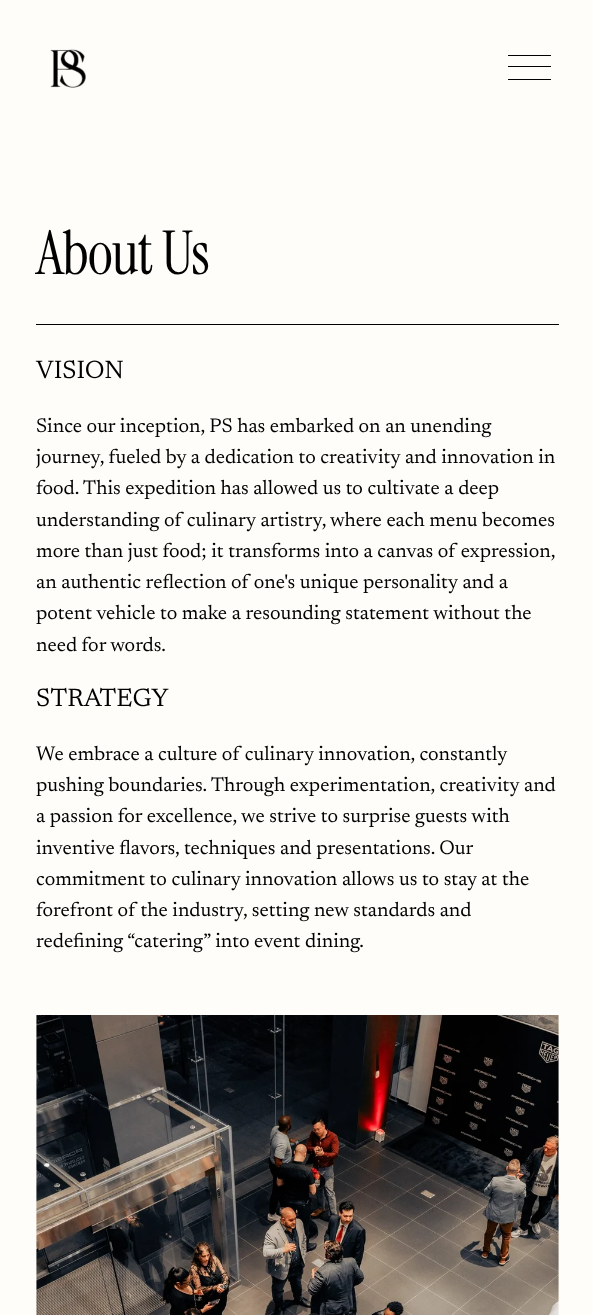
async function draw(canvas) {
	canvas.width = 593;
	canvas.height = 1315;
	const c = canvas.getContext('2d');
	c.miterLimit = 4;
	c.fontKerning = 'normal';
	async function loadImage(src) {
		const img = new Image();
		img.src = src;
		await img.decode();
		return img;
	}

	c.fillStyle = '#fffdf9';
	c.fillRect(0, 0, 593, 1315);
	c.drawImage(await loadImage('img1.png'), 50, 49, 36, 39);
	for (const [x, y, w, h, color] of [
		[508, 55, 43, 1, '#000'],
		[508, 66, 43, 1, '#000'],
		[508, 79, 43, 1, '#000'],
	]) {
		c.fillStyle = color;
		c.fillRect(x, y, w, h);
	}
	c.letterSpacing = '-1.25px';
	c.font = '60.5px Instrument Serif';
	c.fillText('About Us', 36, 274);
	c.fillRect(36, 324, 523, 1);
	c.letterSpacing = '0px';
	c.font = '25.5px Newsreader';
	c.fillText('VISION', 36, 378);
	c.font = '20px Newsreader';
	for (const [text, x, y] of [
		['Since our inception, PS has embarked on an unending', 36, 432],
		['journey, fueled by a dedication to creativity and innovation in', 36, 463],
		['food. This expedition has allowed us to cultivate a deep', 36, 494],
		['understanding of culinary artistry, where each menu becomes', 36, 526],
		['more than just food; it transforms into a canvas of expression,', 36, 557],
		['an authentic reflection of one\'s unique personality and a', 36, 588],
		['potent vehicle to make a resounding statement without the', 36, 619],
		['need for words.', 36, 651],
	]) {
		c.fillText(text, x, y);
	}
	c.font = '25.5px Newsreader';
	c.fillText('STRATEGY', 36, 706);
	c.font = '20px Newsreader';
	for (const [text, x, y] of [
		['We embrace a culture of culinary innovation, constantly', 36, 760],
		['pushing boundaries. Through experimentation, creativity and', 36, 791],
		['a passion for excellence, we strive to surprise guests with', 36, 822],
		['inventive flavors, techniques and presentations. Our', 36, 854],
		['commitment to culinary innovation allows us to stay at the', 36, 885],
		['forefront of the industry, setting new standards and', 36, 916],
		['redefining “catering” into event dining.', 36, 947],
	]) {
		c.fillText(text, x, y);
	}
	c.drawImage(await loadImage('img2.png'), 36, 1015, 523, 300);
}

draw(document.querySelector('canvas'));
